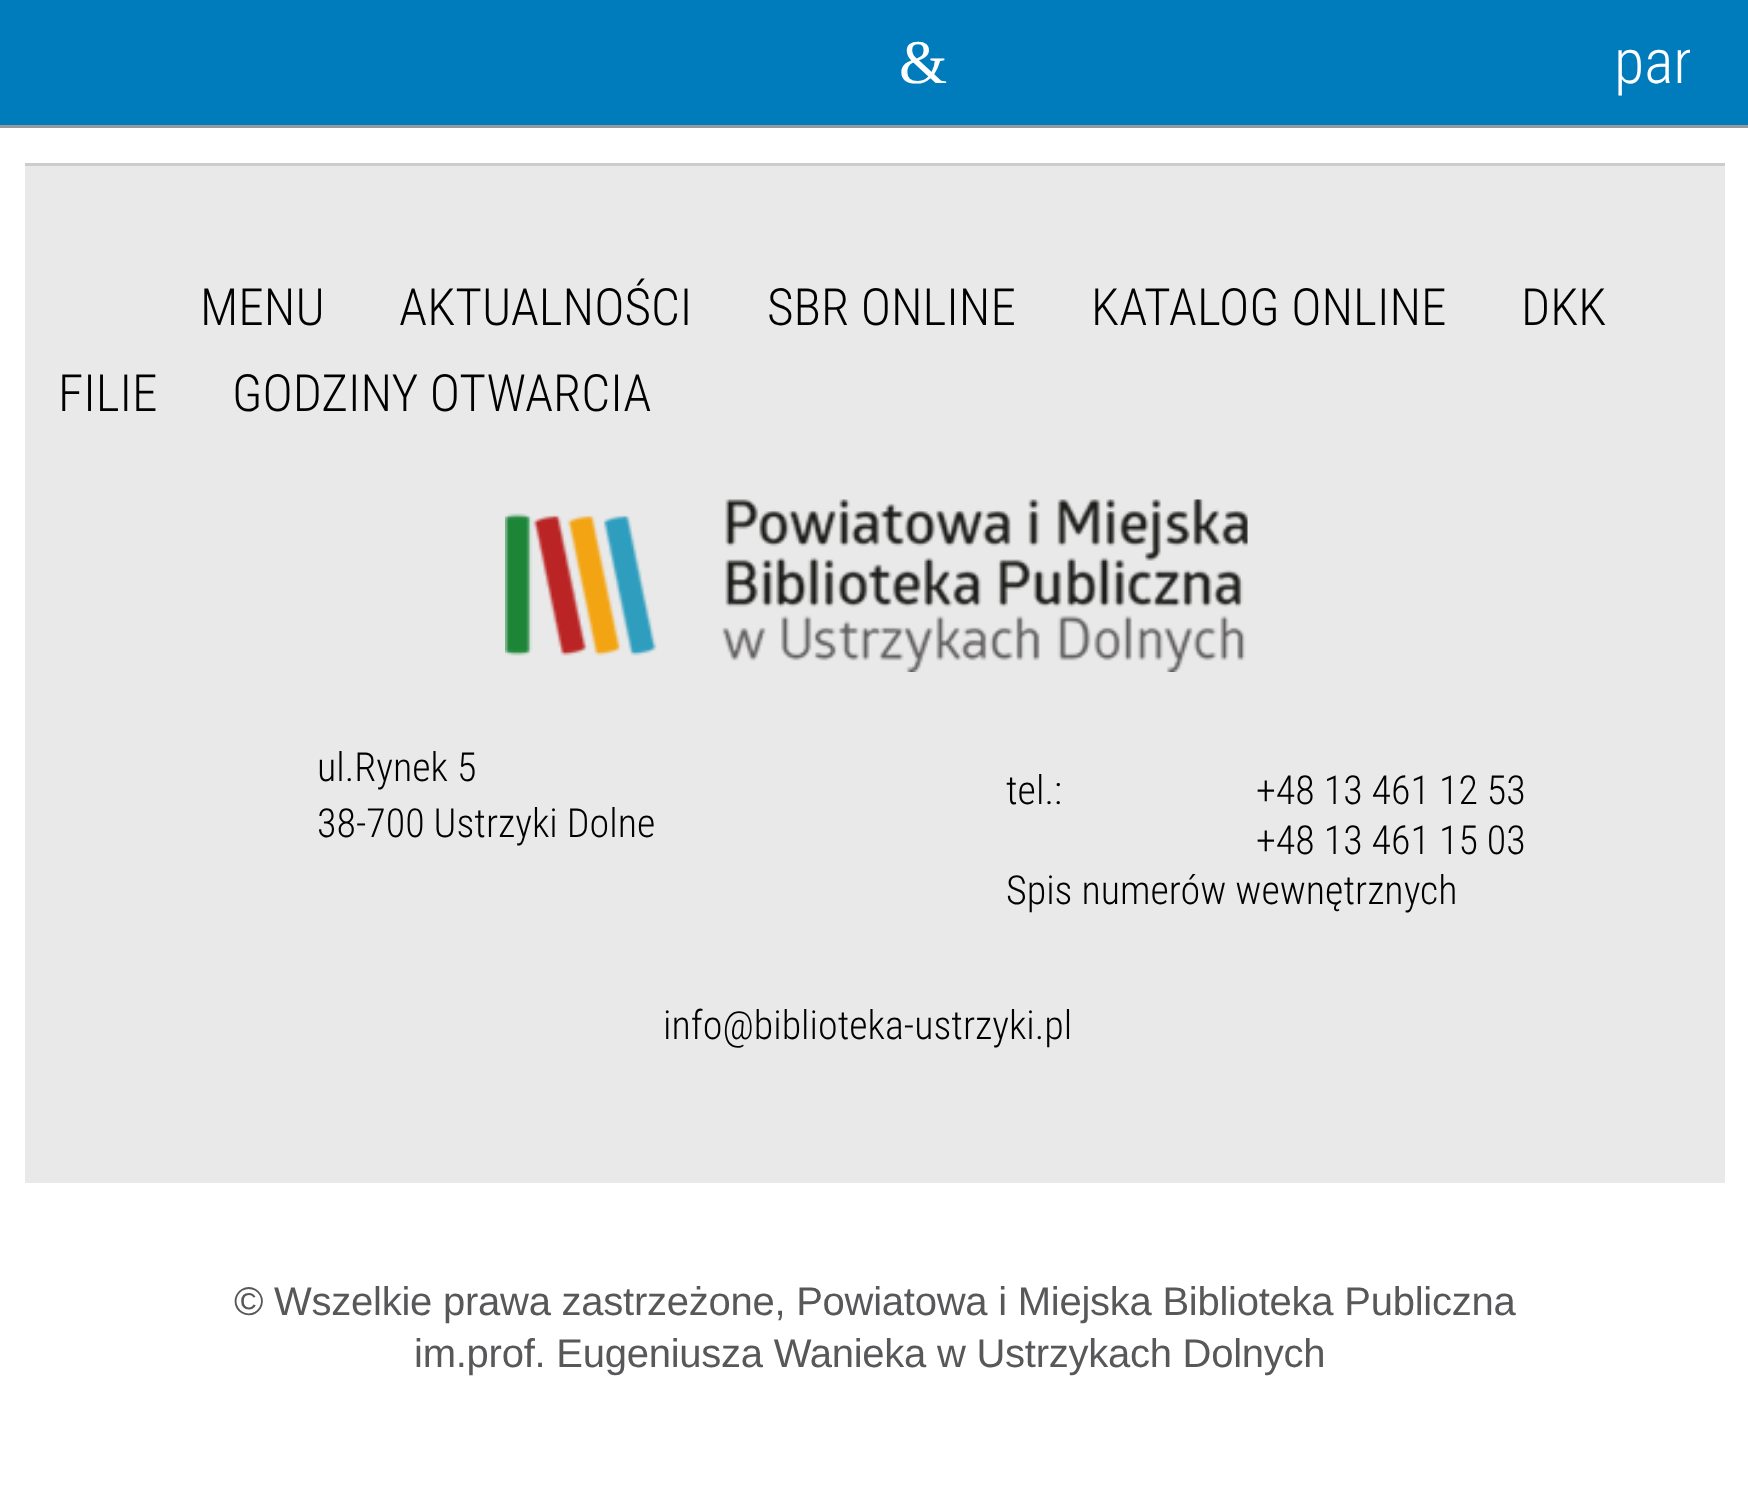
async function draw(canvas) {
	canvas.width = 1748;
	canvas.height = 1512;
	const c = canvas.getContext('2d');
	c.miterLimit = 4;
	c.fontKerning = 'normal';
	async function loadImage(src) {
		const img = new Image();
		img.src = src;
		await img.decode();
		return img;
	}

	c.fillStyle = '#fff';
	c.fillRect(0, 0, 1748, 1512);
	c.fillStyle = '#007cbc';
	c.fillRect(0, 0, 1748, 125);
	c.fillStyle = '#999';
	c.fillRect(0, 125, 1748, 3);
	c.font = '62px Liberation Serif';
	c.fillStyle = '#fff';
	c.fillText('&', 899, 83);
	c.save();
	c.beginPath();
	c.rect(1615, 25, 75, 75);
	c.clip();
	c.font = '300 62px Roboto Condensed';
	c.fillText('pan', 1614, 83);
	c.restore();
	c.fillStyle = '#e9e9e9';
	c.fillRect(25, 166, 1700, 1017);
	c.fillStyle = '#ccc';
	c.fillRect(25, 163, 1700, 3);
	c.font = '300 51.25px Roboto Condensed';
	c.fillStyle = '#000';
	for (const [text, x, y] of [
		['MENU', 200, 325],
		['AKTUALNOŚCI', 399, 325],
		['SBR ONLINE', 767, 325],
		['KATALOG ONLINE', 1091, 325],
		['DKK', 1521, 325],
		['FILIE', 58, 411],
		['GODZINY OTWARCIA', 232, 411],
	]) {
		c.fillText(text, x, y);
	}
	c.drawImage(await loadImage('img1.png'), 505, 499, 743, 173);
	c.font = '300 40px Roboto Condensed';
	for (const [text, x, y] of [
		['ul.Rynek 5', 317, 781],
		['38-700 Ustrzyki Dolne', 317, 837],
		['tel.:', 1006, 804],
		['+48 13 461 12 53', 1256, 804],
		['+48 13 461 15 03', 1256, 854],
		['Spis numerów wewnętrznych', 1006, 904],
		['info@biblioteka-ustrzyki.pl', 663, 1039],
	]) {
		c.fillText(text, x, y);
	}
	c.letterSpacing = '-0.25px';
	c.font = '40px Liberation Sans';
	c.fillStyle = '#58585a';
	c.fillText('© Wszelkie prawa zastrzeżone, Powiatowa i Miejska Biblioteka Publiczna', 234, 1315);
	c.fillText('im.prof. Eugeniusza Wanieka w Ustrzykach Dolnych', 414, 1367);
}

draw(document.querySelector('canvas'));
